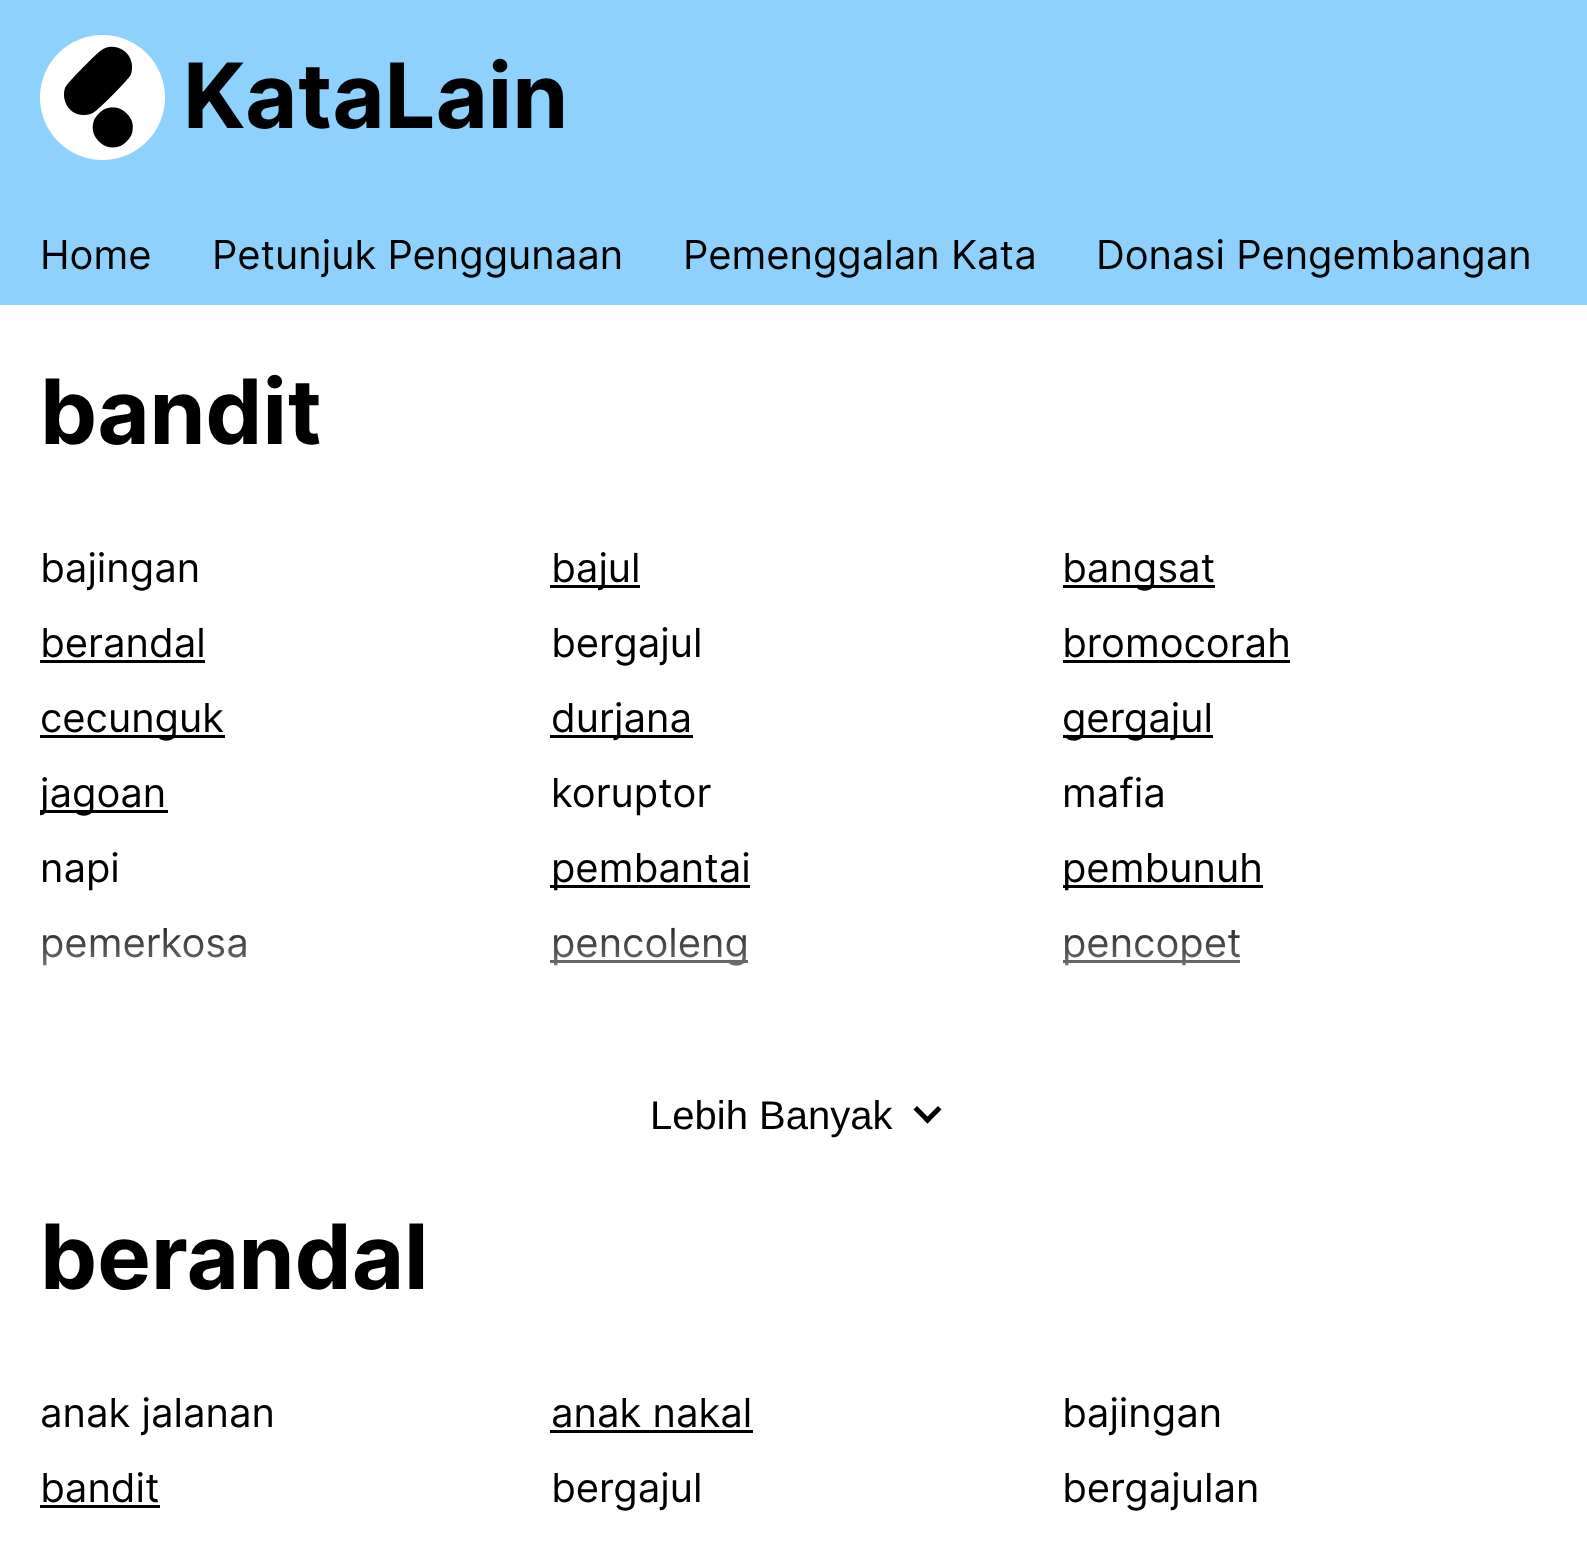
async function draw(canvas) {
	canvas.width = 1587;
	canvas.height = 1563;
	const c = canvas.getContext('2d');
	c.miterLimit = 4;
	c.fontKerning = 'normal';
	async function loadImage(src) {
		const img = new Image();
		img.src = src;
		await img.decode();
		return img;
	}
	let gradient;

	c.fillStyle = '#fff';
	c.fillRect(0, 0, 1587, 1563);
	c.fillStyle = '#8ed1fc';
	c.fillRect(0, 0, 1587, 305);
	c.drawImage(await loadImage('img1.png'), 40, 35, 125, 125);
	c.font = 'bold 90px Inter';
	c.fillStyle = '#000';
	c.fillText('KataLain', 183, 128);
	c.font = '40px Inter';
	for (const [text, x, y] of [
		['Home', 40, 269],
		['Petunjuk Penggunaan', 212, 269],
		['Pemenggalan Kata', 683, 269],
		['Donasi Pengembangan', 1096, 269],
	]) {
		c.fillText(text, x, y);
	}
	c.font = 'bold 90px Inter';
	c.fillText('bandit', 40, 444);
	c.font = '40px Inter';
	c.fillText('bajingan', 40, 582);
	c.fillRect(550, 585, 90, 3);
	c.fillText('bajul', 551, 582);
	c.fillRect(1063, 585, 152, 3);
	c.fillText('bangsat', 1062, 582);
	c.fillText('berandal', 40, 657);
	c.fillRect(40, 660, 165, 3);
	c.fillText('bergajul', 551, 657);
	c.fillText('bromocorah', 1062, 657);
	c.fillRect(1063, 660, 227, 3);
	c.fillRect(40, 735, 185, 3);
	c.fillText('cecunguk', 40, 732);
	c.fillRect(550, 735, 143, 3);
	c.fillText('durjana', 551, 732);
	c.fillRect(1063, 735, 150, 3);
	c.fillText('gergajul', 1062, 732);
	c.fillRect(40, 810, 128, 3);
	c.save();
	c.beginPath();
	c.rect(40, 468, 1508, 562);
	c.clip();
	c.fillText('jagoan', 40, 807);
	c.restore();
	for (const [text, x, y] of [
		['koruptor', 551, 807],
		['mafia', 1062, 807],
		['napi', 40, 882],
	]) {
		c.fillText(text, x, y);
	}
	c.fillRect(550, 885, 200, 3);
	c.fillText('pembantai', 551, 882);
	c.fillRect(1063, 885, 200, 3);
	c.fillText('pembunuh', 1062, 882);
	c.fillText('pemerkosa', 40, 957);
	c.fillRect(550, 960, 198, 3);
	c.fillText('pencoleng', 551, 957);
	c.fillRect(1063, 960, 177, 3);
	c.fillText('pencopet', 1062, 957);
	gradient = c.createLinearGradient(794, 905, 794, 1030);
	gradient.addColorStop(0, '#ffffff00');
	gradient.addColorStop(1, '#ffffffe6');
	c.fillStyle = gradient;
	c.fillRect(43, 927, 1197, 39);
	c.font = '40px Liberation Sans';
	c.fillStyle = '#000';
	c.fillText('Lebih Banyak', 650, 1129);
	c.beginPath();
	c.moveTo(938, 1106);
	c.lineTo(941.5, 1109.5);
	c.lineTo(927.5, 1123.5);
	c.lineTo(924, 1120);
	c.closePath();
	c.fill();
	c.beginPath();
	c.moveTo(917, 1106);
	c.lineTo(931, 1120);
	c.lineTo(927.5, 1123.5);
	c.lineTo(913.5, 1109.5);
	c.closePath();
	c.fill();
	c.font = 'bold 90px Inter';
	c.fillText('berandal', 40, 1289);
	c.font = '40px Inter';
	c.fillText('anak jalanan', 40, 1427);
	c.fillText('anak nakal', 551, 1427);
	c.fillRect(550, 1430, 203, 3);
	c.fillText('bajingan', 1062, 1427);
	c.fillText('bandit', 40, 1502);
	c.fillRect(40, 1505, 120, 3);
	c.fillText('bergajul', 551, 1502);
	c.fillText('bergajulan', 1062, 1502);
}

draw(document.querySelector('canvas'));
